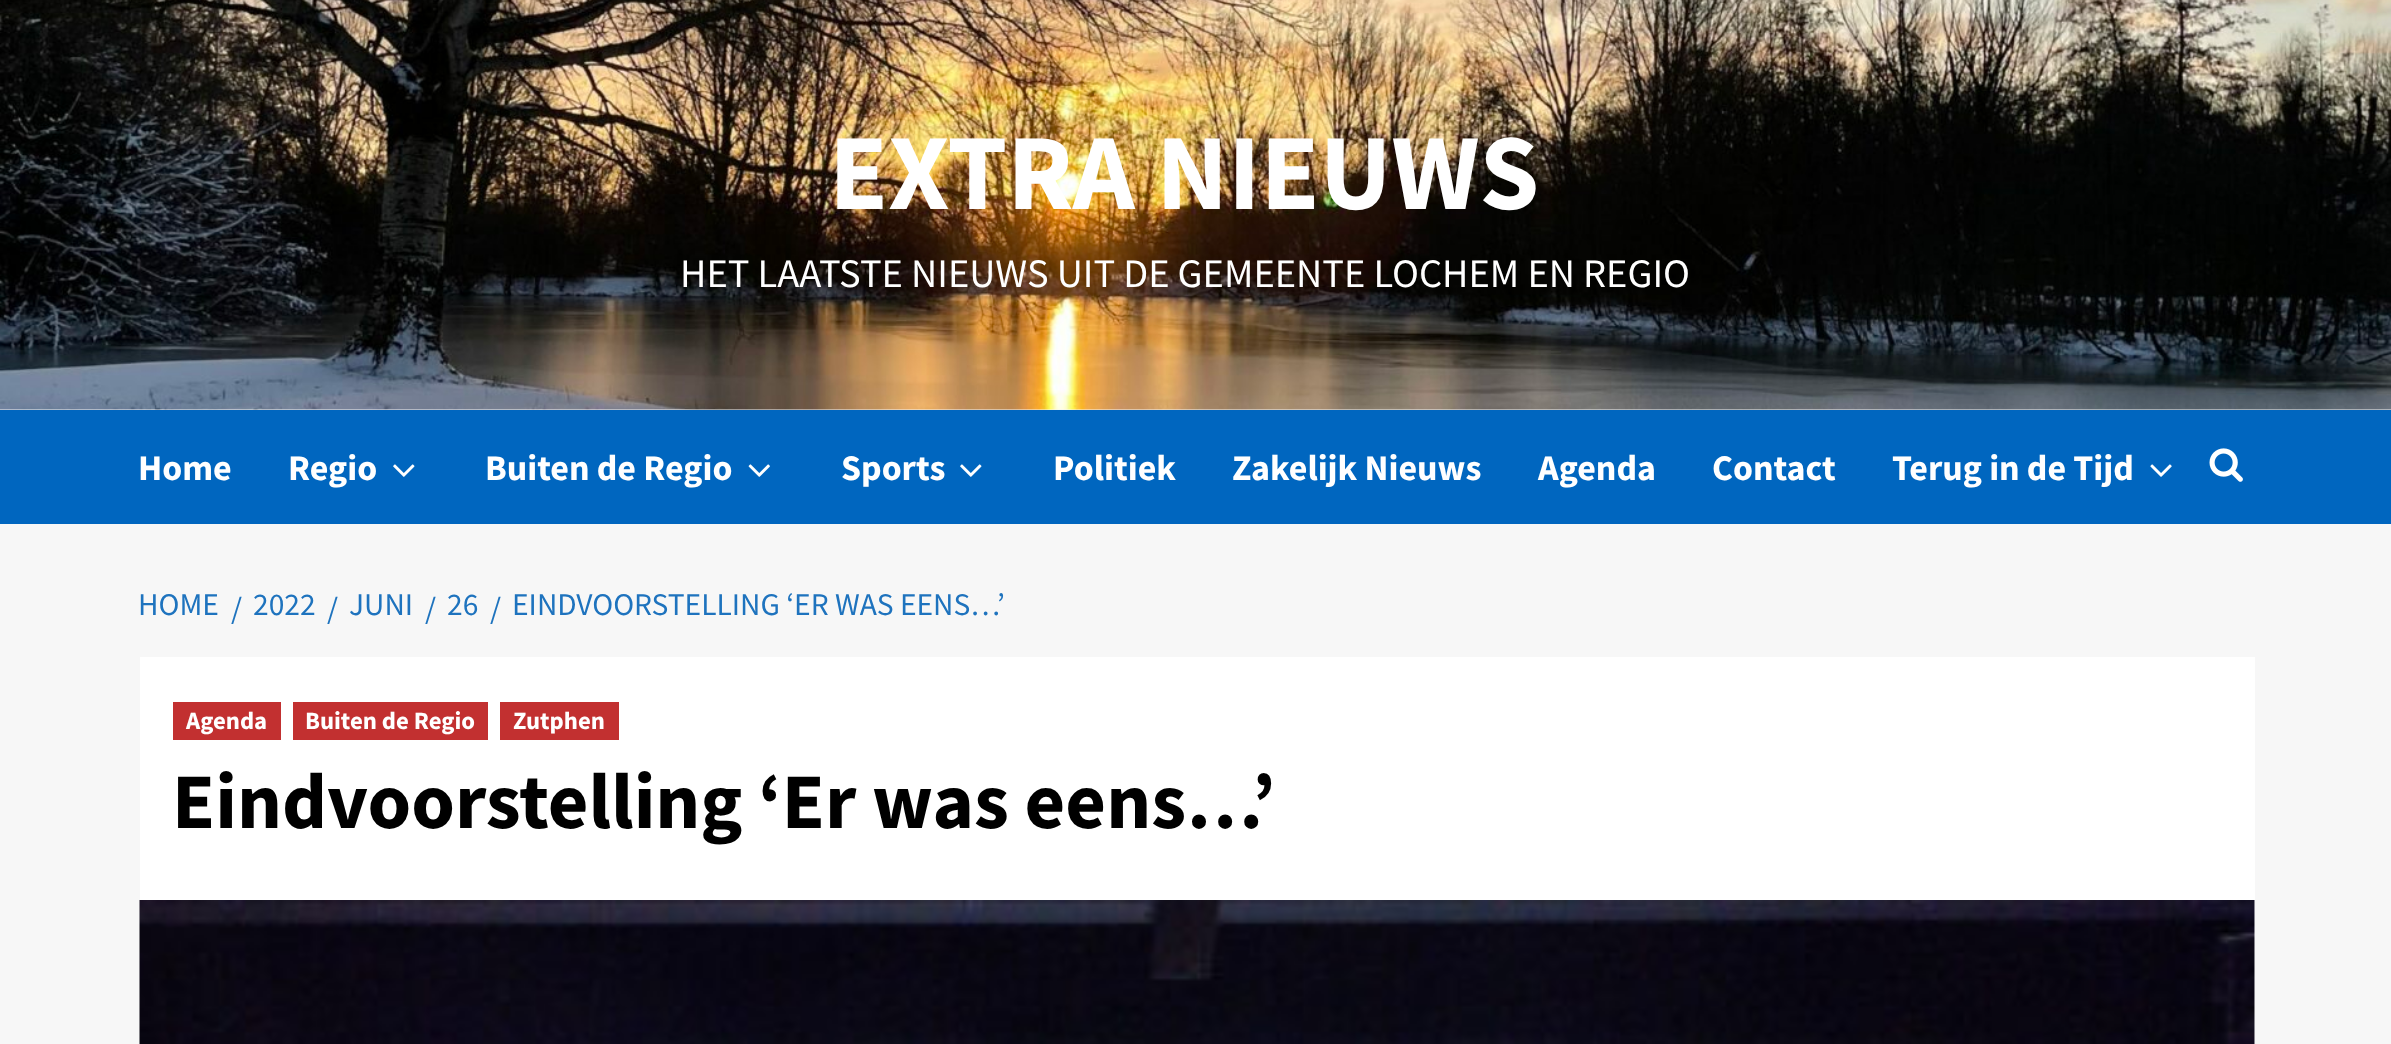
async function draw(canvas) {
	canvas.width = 2391;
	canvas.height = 1044;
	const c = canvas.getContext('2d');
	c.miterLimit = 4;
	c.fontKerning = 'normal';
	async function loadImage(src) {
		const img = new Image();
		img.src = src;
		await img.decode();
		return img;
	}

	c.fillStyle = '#f7f7f7';
	c.fillRect(0, 0, 2391, 1044);
	c.drawImage(await loadImage('img1.png'), 0, 0, 2391, 410);
	c.font = 'bold 108px Source Sans Pro';
	c.fillStyle = '#fff';
	c.fillText('EXTRA NIEUWS', 829, 209);
	c.font = '40.5px Source Sans Pro';
	c.fillText('HET LAATSTE NIEUWS UIT DE GEMEENTE LOCHEM EN REGIO', 680, 287);
	c.fillStyle = '#0066bf';
	c.fillRect(0, 410, 2391, 114);
	c.font = 'bold 36px Source Sans Pro';
	c.fillStyle = '#fff';
	c.fillText('Home', 138, 480);
	c.fillText('Regio', 288, 480);
	c.drawImage(await loadImage('img2.png'), 393, 464, 22, 13);
	c.fillText('Buiten de Regio', 485, 480);
	c.drawImage(await loadImage('img3.png'), 748, 464, 22, 13);
	c.fillText('Sports', 841, 480);
	c.drawImage(await loadImage('img2.png'), 960, 464, 22, 13);
	for (const [text, x, y] of [
		['Politiek', 1053, 480],
		['Zakelijk Nieuws', 1232, 480],
		['Agenda', 1538, 480],
		['Contact', 1712, 480],
		['Terug in de Tijd', 1892, 480],
	]) {
		c.fillText(text, x, y);
	}
	c.drawImage(await loadImage('img4.png'), 2150, 464, 22, 13);
	c.drawImage(await loadImage('img5.png'), 2209, 448, 34, 34);
	c.font = '31.5px Source Sans Pro';
	c.fillStyle = '#1e73be';
	for (const [text, x, y] of [
		['HOME', 138, 615],
		['/', 231, 619],
		['2022', 253, 615],
		['/', 327, 619],
		['JUNI', 349, 615],
		['/', 425, 619],
		['26', 447, 615],
		['/', 490, 619],
		['EINDVOORSTELLING ‘ER WAS EENS…’', 512, 615],
	]) {
		c.fillText(text, x, y);
	}
	c.fillStyle = '#fff';
	c.fillRect(140, 657, 2115, 387);
	c.fillStyle = '#c23030';
	c.fillRect(173, 702, 108, 38);
	c.font = 'bold 24.75px Source Sans Pro';
	c.fillStyle = '#fff';
	c.fillText('Agenda', 186, 729);
	c.fillStyle = '#c23030';
	c.fillRect(293, 702, 195, 38);
	c.fillStyle = '#fff';
	c.fillText('Buiten de Regio', 305, 729);
	c.fillStyle = '#c23030';
	c.fillRect(500, 702, 119, 38);
	c.fillStyle = '#fff';
	c.fillText('Zutphen', 513, 729);
	c.font = 'bold 78.75px Source Sans Pro';
	c.fillStyle = '#000';
	c.fillText('Eindvoorstelling ‘Er was eens…’', 172, 828);
	c.drawImage(await loadImage('img6.png'), 139, 900, 2116, 144);
}

draw(document.querySelector('canvas'));
